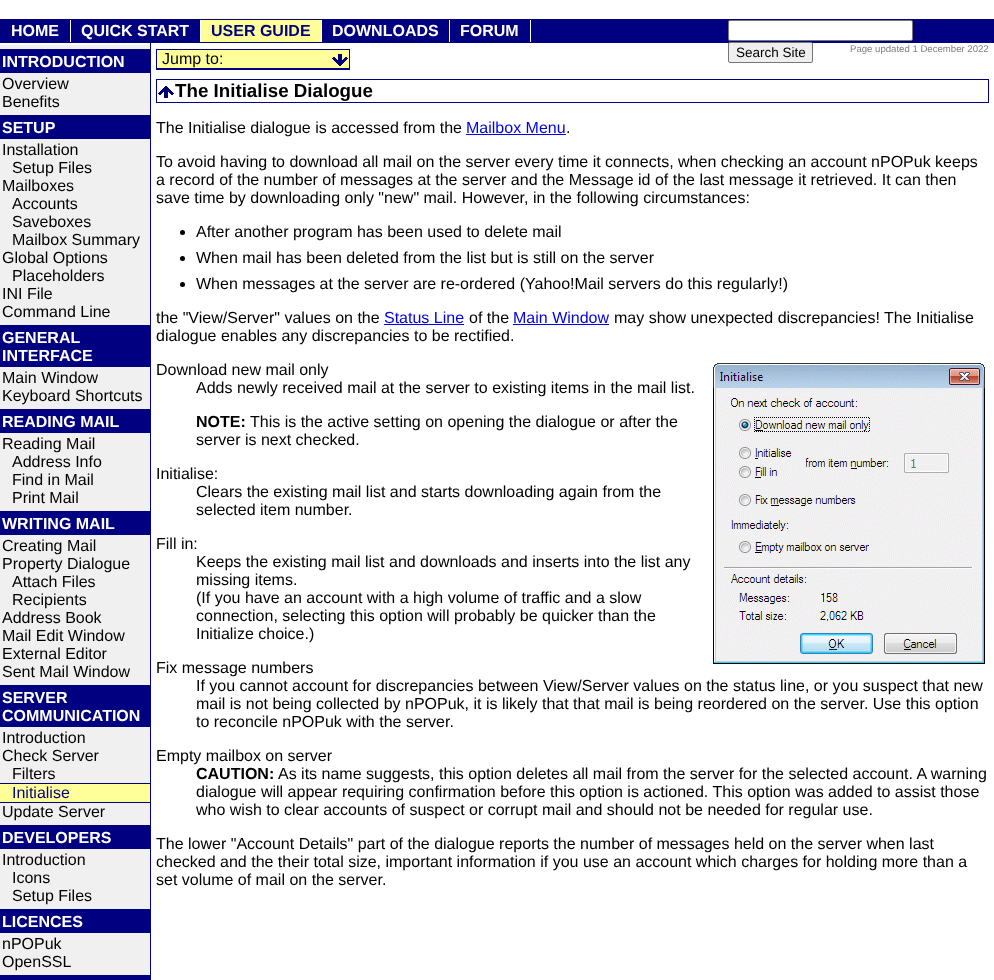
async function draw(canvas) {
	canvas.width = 994;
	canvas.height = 980;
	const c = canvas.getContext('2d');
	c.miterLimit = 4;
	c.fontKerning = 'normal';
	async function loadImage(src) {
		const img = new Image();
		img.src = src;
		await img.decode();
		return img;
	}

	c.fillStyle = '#fff';
	c.fillRect(0, 0, 994, 980);
	c.fillStyle = '#000080';
	c.fillRect(0, 19, 994, 24);
	c.fillStyle = '#fff';
	c.fillRect(70, 20, 1, 22);
	c.font = 'bold 16px Liberation Sans';
	c.fillText('HOME', 11, 36);
	c.fillRect(200, 20, 1, 22);
	c.fillText('QUICK START', 81, 36);
	c.fillStyle = '#ff9';
	c.fillRect(201, 20, 120, 22);
	c.fillStyle = '#fff';
	c.fillRect(321, 20, 1, 22);
	c.fillStyle = '#000080';
	c.fillText('USER GUIDE', 211, 36);
	c.fillStyle = '#fff';
	c.fillRect(449, 20, 1, 22);
	c.fillText('DOWNLOADS', 332, 36);
	c.fillRect(530, 20, 1, 22);
	c.fillText('FORUM', 460, 36);
	c.beginPath();
	c.roundRect(728.5, 20.5, 184, 20, 1.5);
	c.fill();
	c.strokeStyle = '#767676';
	c.stroke();
	c.fillStyle = '#efefef';
	c.beginPath();
	c.roundRect(728.5, 42.5, 84, 20, 1.5);
	c.fill();
	c.stroke();
	c.font = '13.5px Liberation Sans';
	c.fillStyle = '#000';
	c.fillText('Search Site', 736, 57);
	c.fillStyle = '#f0f0f0';
	c.fillRect(0, 45, 150, 930);
	c.fillStyle = '#000080';
	c.fillRect(0, 49, 150, 24);
	c.font = 'bold 16px Liberation Sans';
	c.fillStyle = '#fff';
	c.fillText('INTRODUCTION', 2, 67);
	c.font = '16px Liberation Sans';
	c.fillStyle = '#000';
	c.fillText('Overview', 2, 89);
	c.fillText('Benefits', 2, 107);
	c.fillStyle = '#000080';
	c.fillRect(0, 115, 150, 24);
	c.font = 'bold 16px Liberation Sans';
	c.fillStyle = '#fff';
	c.fillText('SETUP', 2, 133);
	c.font = '16px Liberation Sans';
	c.fillStyle = '#000';
	for (const [text, x, y] of [
		['Installation', 2, 155],
		['Setup Files', 12, 173],
		['Mailboxes', 2, 191],
		['Accounts', 12, 209],
		['Saveboxes', 12, 227],
		['Mailbox Summary', 12, 245],
		['Global Options', 2, 263],
		['Placeholders', 12, 281],
		['INI File', 2, 299],
		['Command Line', 2, 317],
	]) {
		c.fillText(text, x, y);
	}
	c.fillStyle = '#000080';
	c.fillRect(0, 325, 150, 42);
	c.font = 'bold 16px Liberation Sans';
	c.fillStyle = '#fff';
	c.fillText('GENERAL', 2, 343);
	c.fillText('INTERFACE', 2, 361);
	c.font = '16px Liberation Sans';
	c.fillStyle = '#000';
	c.fillText('Main Window', 2, 383);
	c.fillText('Keyboard Shortcuts', 2, 401);
	c.fillStyle = '#000080';
	c.fillRect(0, 409, 150, 24);
	c.font = 'bold 16px Liberation Sans';
	c.fillStyle = '#fff';
	c.fillText('READING MAIL', 2, 427);
	c.font = '16px Liberation Sans';
	c.fillStyle = '#000';
	for (const [text, x, y] of [
		['Reading Mail', 2, 449],
		['Address Info', 12, 467],
		['Find in Mail', 12, 485],
		['Print Mail', 12, 503],
	]) {
		c.fillText(text, x, y);
	}
	c.fillStyle = '#000080';
	c.fillRect(0, 511, 150, 24);
	c.font = 'bold 16px Liberation Sans';
	c.fillStyle = '#fff';
	c.fillText('WRITING MAIL', 2, 529);
	c.font = '16px Liberation Sans';
	c.fillStyle = '#000';
	for (const [text, x, y] of [
		['Creating Mail', 2, 551],
		['Property Dialogue', 2, 569],
		['Attach Files', 12, 587],
		['Recipients', 12, 605],
		['Address Book', 2, 623],
		['Mail Edit Window', 2, 641],
		['External Editor', 2, 659],
		['Sent Mail Window', 2, 677],
	]) {
		c.fillText(text, x, y);
	}
	c.fillStyle = '#000080';
	c.fillRect(0, 685, 150, 42);
	c.font = 'bold 16px Liberation Sans';
	c.fillStyle = '#fff';
	c.fillText('SERVER', 2, 703);
	c.fillText('COMMUNICATION', 2, 721);
	c.font = '16px Liberation Sans';
	c.fillStyle = '#000';
	for (const [text, x, y] of [
		['Introduction', 2, 743],
		['Check Server', 2, 761],
		['Filters', 12, 779],
	]) {
		c.fillText(text, x, y);
	}
	for (const [x, y, w, h, color] of [
		[0, 784, 150, 18, '#ff9'],
		[0, 783, 150, 1, '#000080'],
		[0, 802, 150, 1, '#000080'],
	]) {
		c.fillStyle = color;
		c.fillRect(x, y, w, h);
	}
	c.fillText('Initialise', 12, 798);
	c.fillStyle = '#000';
	c.fillText('Update Server', 2, 817);
	c.fillStyle = '#000080';
	c.fillRect(0, 825, 150, 24);
	c.font = 'bold 16px Liberation Sans';
	c.fillStyle = '#fff';
	c.fillText('DEVELOPERS', 2, 843);
	c.font = '16px Liberation Sans';
	c.fillStyle = '#000';
	for (const [text, x, y] of [
		['Introduction', 2, 865],
		['Icons', 12, 883],
		['Setup Files', 12, 901],
	]) {
		c.fillText(text, x, y);
	}
	c.fillStyle = '#000080';
	c.fillRect(0, 909, 150, 24);
	c.font = 'bold 16px Liberation Sans';
	c.fillStyle = '#fff';
	c.fillText('LICENCES', 2, 927);
	c.font = '16px Liberation Sans';
	c.fillStyle = '#000';
	c.fillText('nPOPuk', 2, 949);
	c.fillText('OpenSSL', 2, 967);
	c.fillStyle = '#000080';
	c.fillRect(0, 975, 150, 5);
	c.fillRect(150, 43, 1, 937);
	c.font = '9.6px Liberation Sans';
	c.fillStyle = '#808080';
	c.fillText('Page updated 1 December 2022', 850, 52);
	c.fillStyle = '#ff9';
	c.fillRect(157, 50, 192, 18);
	c.strokeStyle = '#000080';
	c.strokeRect(156.5, 49.5, 193, 20);
	c.drawImage(await loadImage('img1.png'), 332, 54, 16, 12);
	c.fillStyle = '#000080';
	c.fillRect(157, 68, 192, 1);
	c.font = '16px Liberation Sans';
	c.fillStyle = '#000';
	c.fillText('Jump to:', 162, 64);
	c.strokeRect(156.5, 79.5, 832, 23);
	c.drawImage(await loadImage('img2.png'), 158, 86, 16, 12);
	c.font = 'bold 18.75px Liberation Sans';
	c.fillText('The Initialise Dialogue', 175, 97);
	c.font = '16px Liberation Sans';
	c.fillText('The Initialise dialogue is accessed from the', 156, 133);
	c.fillStyle = '#00e';
	c.fillText('Mailbox Menu', 466, 133);
	c.fillRect(466, 134, 100, 1);
	c.fillStyle = '#000';
	for (const [text, x, y] of [
		['.', 566, 133],
		['To avoid having to download all mail on the server every time it connects, when checking an account nPOPuk keeps', 156, 167],
		['a record of the number of messages at the server and the Message id of the last message it retrieved. It can then', 156, 185],
		['save time by downloading only "new" mail. However, in the following circumstances:', 156, 203],
	]) {
		c.fillText(text, x, y);
	}
	c.beginPath();
	c.arc(182.5, 232.5, 2.5, 0, 2 * Math.PI);
	c.fill();
	c.fillText('After another program has been used to delete mail', 196, 237);
	c.beginPath();
	c.arc(182.5, 258.5, 2.5, 0, 2 * Math.PI);
	c.fill();
	c.fillText('When mail has been deleted from the list but is still on the server', 196, 263);
	c.beginPath();
	c.arc(182.5, 284.5, 2.5, 0, 2 * Math.PI);
	c.fill();
	c.fillText('When messages at the server are re-ordered (Yahoo!Mail servers do this regularly!)', 196, 289);
	c.fillText('the "View/Server" values on the', 156, 323);
	c.fillStyle = '#00e';
	c.fillText('Status Line', 384, 323);
	c.fillRect(384, 324, 80, 1);
	c.fillStyle = '#000';
	c.fillText('of the', 469, 323);
	c.fillStyle = '#00e';
	c.fillText('Main Window', 513, 323);
	c.fillRect(513, 324, 96, 1);
	c.fillStyle = '#000';
	for (const [text, x, y] of [
		['may show unexpected discrepancies! The Initialise', 614, 323],
		['dialogue enables any discrepancies to be rectified.', 156, 341],
		['Download new mail only', 156, 375],
	]) {
		c.fillText(text, x, y);
	}
	c.drawImage(await loadImage('img3.png'), 713, 363, 272, 301);
	c.fillText('Adds newly received mail at the server to existing items in the mail list.', 196, 393);
	c.font = 'bold 16px Liberation Sans';
	c.fillText('NOTE:', 196, 427);
	c.font = '16px Liberation Sans';
	for (const [text, x, y] of [
		['This is the active setting on opening the dialogue or after the', 250, 427],
		['server is next checked.', 196, 445],
		['Initialise:', 156, 479],
		['Clears the existing mail list and starts downloading again from the', 196, 497],
		['selected item number.', 196, 515],
		['Fill in:', 156, 549],
		['Keeps the existing mail list and downloads and inserts into the list any', 196, 567],
		['missing items.', 196, 585],
		['(If you have an account with a high volume of traffic and a slow', 196, 603],
		['connection, selecting this option will probably be quicker than the', 196, 621],
		['Initialize choice.)', 196, 639],
		['Fix message numbers', 156, 673],
		['If you cannot account for discrepancies between View/Server values on the status line, or you suspect that new', 196, 691],
		['mail is not being collected by nPOPuk, it is likely that that mail is being reordered on the server. Use this option', 196, 709],
		['to reconcile nPOPuk with the server.', 196, 727],
		['Empty mailbox on server', 156, 761],
	]) {
		c.fillText(text, x, y);
	}
	c.font = 'bold 16px Liberation Sans';
	c.fillText('CAUTION:', 196, 779);
	c.font = '16px Liberation Sans';
	for (const [text, x, y] of [
		['As its name suggests, this option deletes all mail from the server for the selected account. A warning', 278, 779],
		['dialogue will appear requiring confirmation before this option is actioned. This option was added to assist those', 196, 797],
		['who wish to clear accounts of suspect or corrupt mail and should not be needed for regular use.', 196, 815],
		['The lower "Account Details" part of the dialogue reports the number of messages held on the server when last', 156, 849],
		['checked and the their total size, important information if you use an account which charges for holding more than a', 156, 867],
		['set volume of mail on the server.', 156, 885],
	]) {
		c.fillText(text, x, y);
	}
}

draw(document.querySelector('canvas'));
